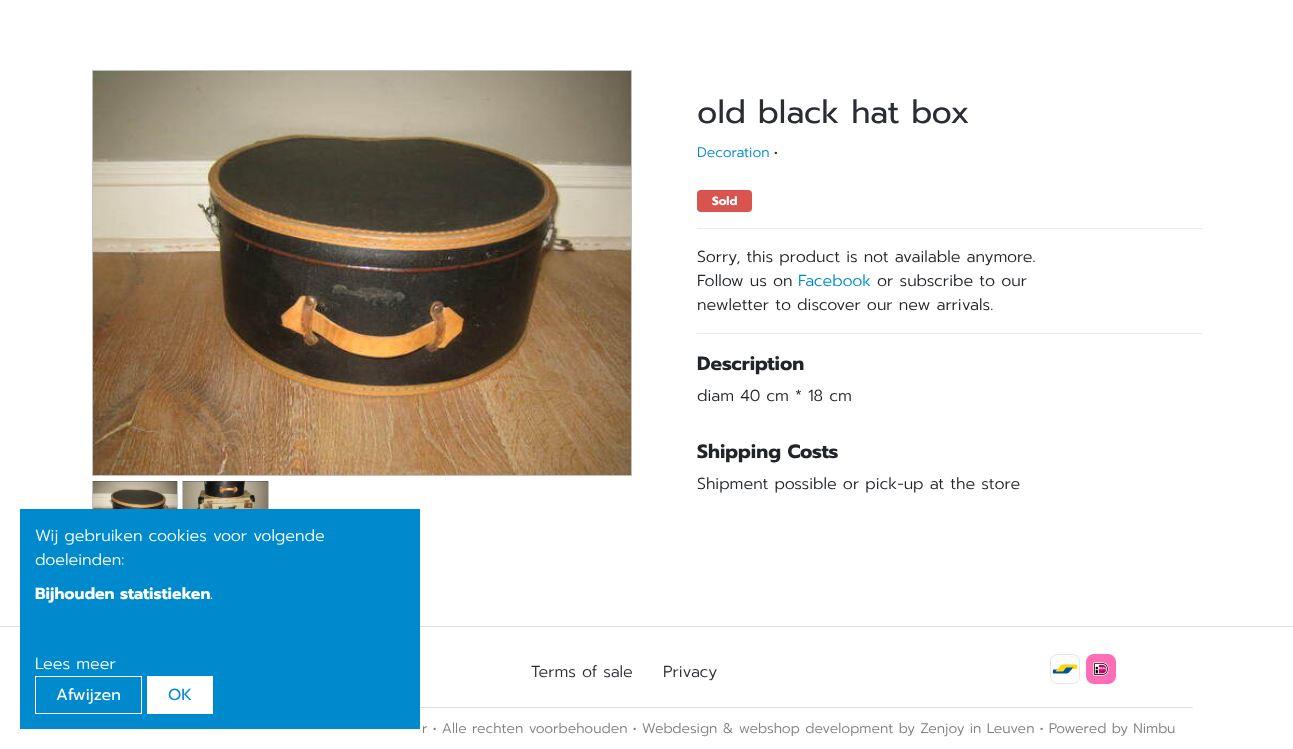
async function draw(canvas) {
	canvas.width = 1293;
	canvas.height = 749;
	const c = canvas.getContext('2d');
	c.miterLimit = 4;
	c.fontKerning = 'normal';
	async function loadImage(src) {
		const img = new Image();
		img.src = src;
		await img.decode();
		return img;
	}

	c.fillStyle = '#fff';
	c.fillRect(0, 0, 1293, 749);
	c.drawImage(await loadImage('img2.png'), 93, 481, 84, 28);
	c.strokeStyle = '#2a2d344d';
	c.strokeRect(92.5, 481.5, 85, 59);
	c.drawImage(await loadImage('img3.png'), 183, 481, 85, 28);
	c.strokeRect(182.5, 481.5, 86, 59);
	c.fillStyle = '#dfe0e1';
	c.fillRect(0, 626, 1293, 1);
	c.fillStyle = '#008ace';
	c.fillRect(20, 509, 400, 220);
	c.font = '300 16px Prompt';
	c.fillStyle = '#fff';
	c.fillText('Wij gebruiken cookies voor volgende', 35, 541);
	c.fillText('doeleinden:', 35, 565);
	c.font = 'bold 16px Prompt';
	c.fillText('Bijhouden statistieken', 35, 599);
	c.font = '300 16px Prompt';
	c.fillText('.', 210, 599);
	c.fillText('Lees meer', 35, 669);
	c.strokeStyle = '#fff';
	c.strokeRect(35.5, 676.5, 106, 37);
	c.font = '16px Prompt';
	c.fillText('Afwijzen', 56, 700);
	c.fillRect(147, 676, 66, 38);
	c.fillStyle = '#008ace';
	c.fillText('OK', 168, 700);
	c.strokeStyle = '#bfc0c2';
	c.strokeRect(92.5, 70.5, 539, 405);
	c.drawImage(await loadImage('img1.png'), 93, 71, 538, 404);
	c.font = '32px Prompt';
	c.fillStyle = '#2a2d34';
	c.fillText('old black hat box', 697, 123);
	c.font = '300 14px Prompt';
	c.fillStyle = '#008ace';
	c.fillText('Decoration', 697, 157);
	c.fillStyle = '#212529';
	c.fillText('•', 774, 157);
	c.fillStyle = '#d9534f';
	c.beginPath();
	c.roundRect(697, 190, 55, 22, 4);
	c.fill();
	c.font = 'bold 12px Prompt';
	c.fillStyle = '#fff';
	c.fillText('Sold', 712, 205);
	c.fillStyle = '#eaeaeb';
	c.fillRect(697, 228, 505, 1);
	c.font = '300 16px Prompt';
	c.fillStyle = '#212529';
	c.fillText('Sorry, this product is not available anymore.', 697, 262);
	c.fillText('Follow us on', 697, 286);
	c.fillStyle = '#008ace';
	c.fillText('Facebook', 798, 286);
	c.fillStyle = '#212529';
	c.fillText('or subscribe to our', 877, 286);
	c.fillText('newletter to discover our new arrivals.', 697, 310);
	c.fillStyle = '#eaeaeb';
	c.fillRect(697, 333, 505, 1);
	c.font = 'bold 19.25px Prompt';
	c.fillStyle = '#212529';
	c.fillText('Description', 697, 370);
	c.font = '300 16px Prompt';
	c.fillText('diam 40 cm * 18 cm', 697, 401);
	c.font = 'bold 19.25px Prompt';
	c.fillText('Shipping Costs', 697, 458);
	c.font = '300 16px Prompt';
	c.fillText('Shipment possible or pick-up at the store', 697, 489);
	c.fillStyle = '#2a2d34';
	c.fillText('Terms of sale', 531, 677);
	c.fillText('Privacy', 663, 677);
	c.drawImage(await loadImage('img4.png'), 1050, 654, 30, 30);
	c.drawImage(await loadImage('img5.png'), 1086, 654, 30, 30);
	c.fillStyle = '#dfe0e1';
	c.fillRect(420, 707, 773, 1);
	c.font = '300 14px Prompt';
	c.fillStyle = '#7f8185';
	c.fillText('r • Alle rechten voorbehouden • Webdesign & webshop development by Zenjoy in Leuven • Powered by Nimbu', 422, 733);
}

draw(document.querySelector('canvas'));
